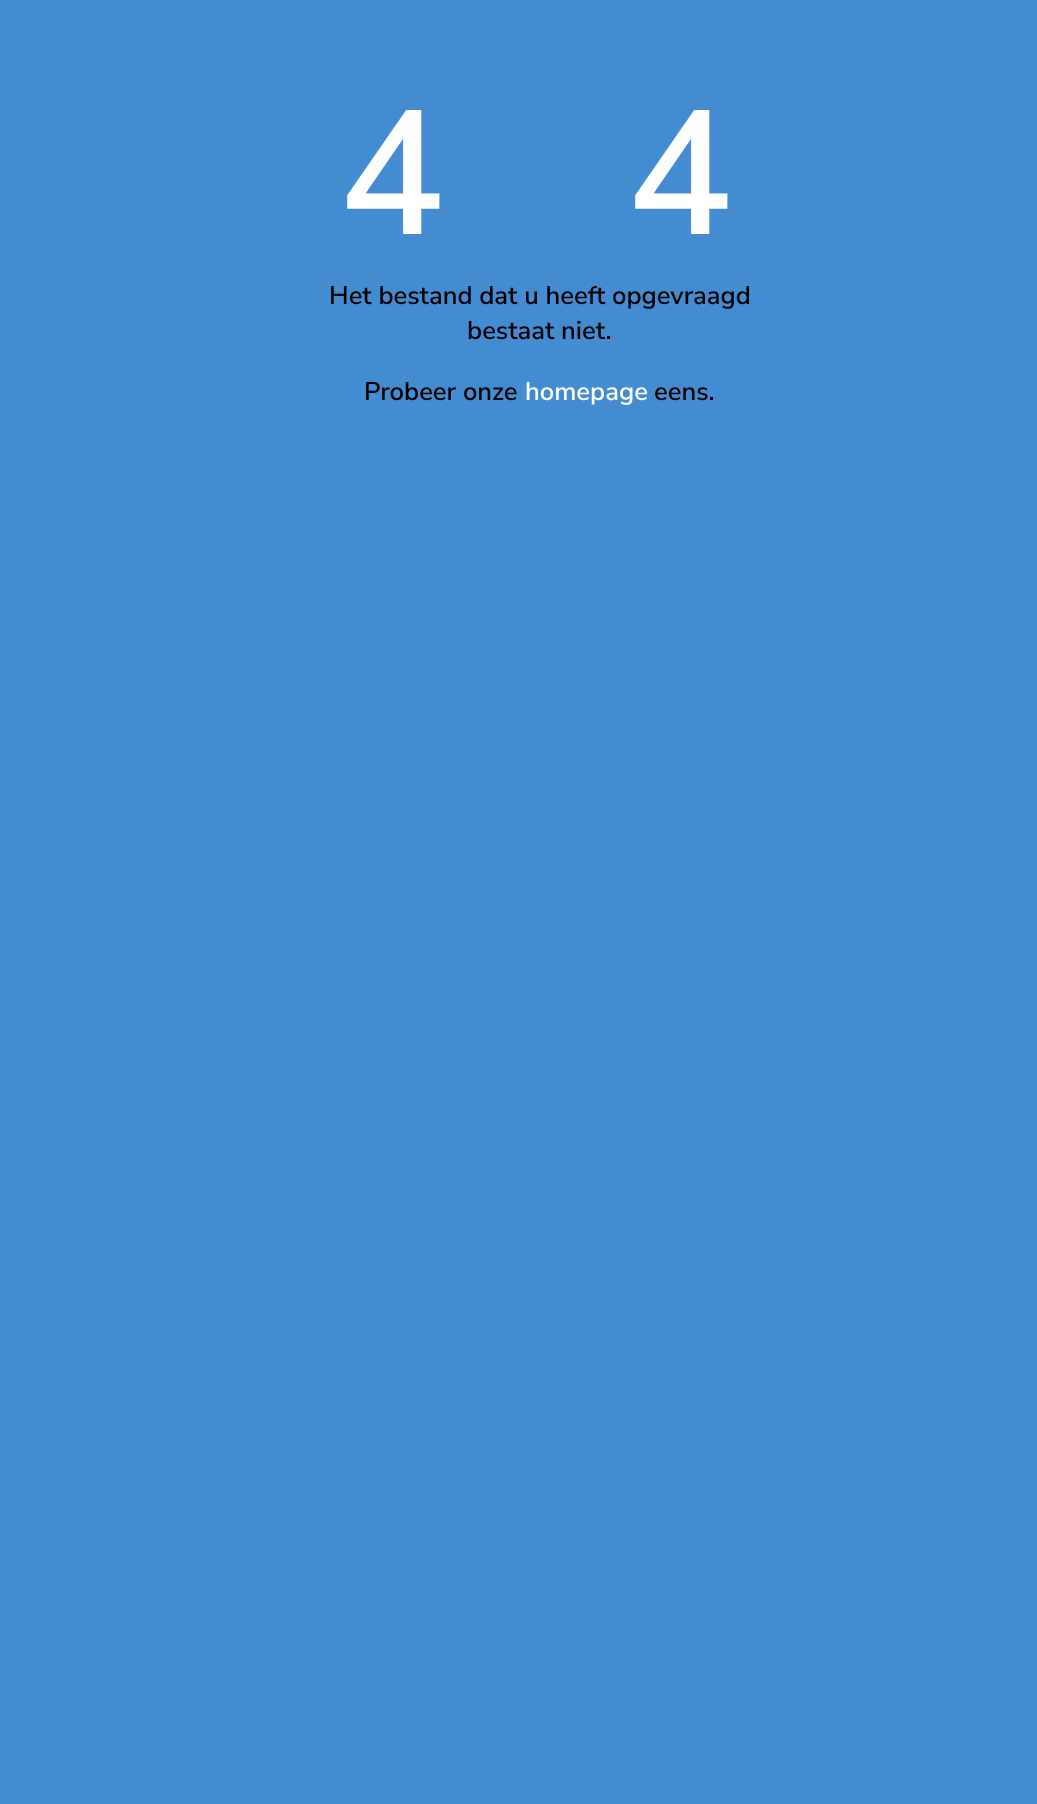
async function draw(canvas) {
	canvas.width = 1037;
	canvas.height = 1804;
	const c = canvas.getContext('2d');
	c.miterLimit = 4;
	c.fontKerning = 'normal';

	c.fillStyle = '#438cd1';
	c.fillRect(0, 0, 1037, 1804);
	c.font = '600 176px Nunito Sans';
	c.fillStyle = '#fff';
	c.fillText('4', 339, 234);
	c.fillText('4', 627, 234);
	c.font = '600 25.6px Nunito Sans';
	c.fillStyle = '#000';
	for (const [text, x, y] of [
		['Het bestand dat u heeft opgevraagd', 329, 304],
		['bestaat niet.', 467, 339],
		['Probeer onze', 364, 400],
	]) {
		c.fillText(text, x, y);
	}
	c.fillStyle = '#fff';
	c.fillText('homepage', 525, 400);
	c.fillStyle = '#000';
	c.fillText('eens.', 654, 400);
}

draw(document.querySelector('canvas'));
